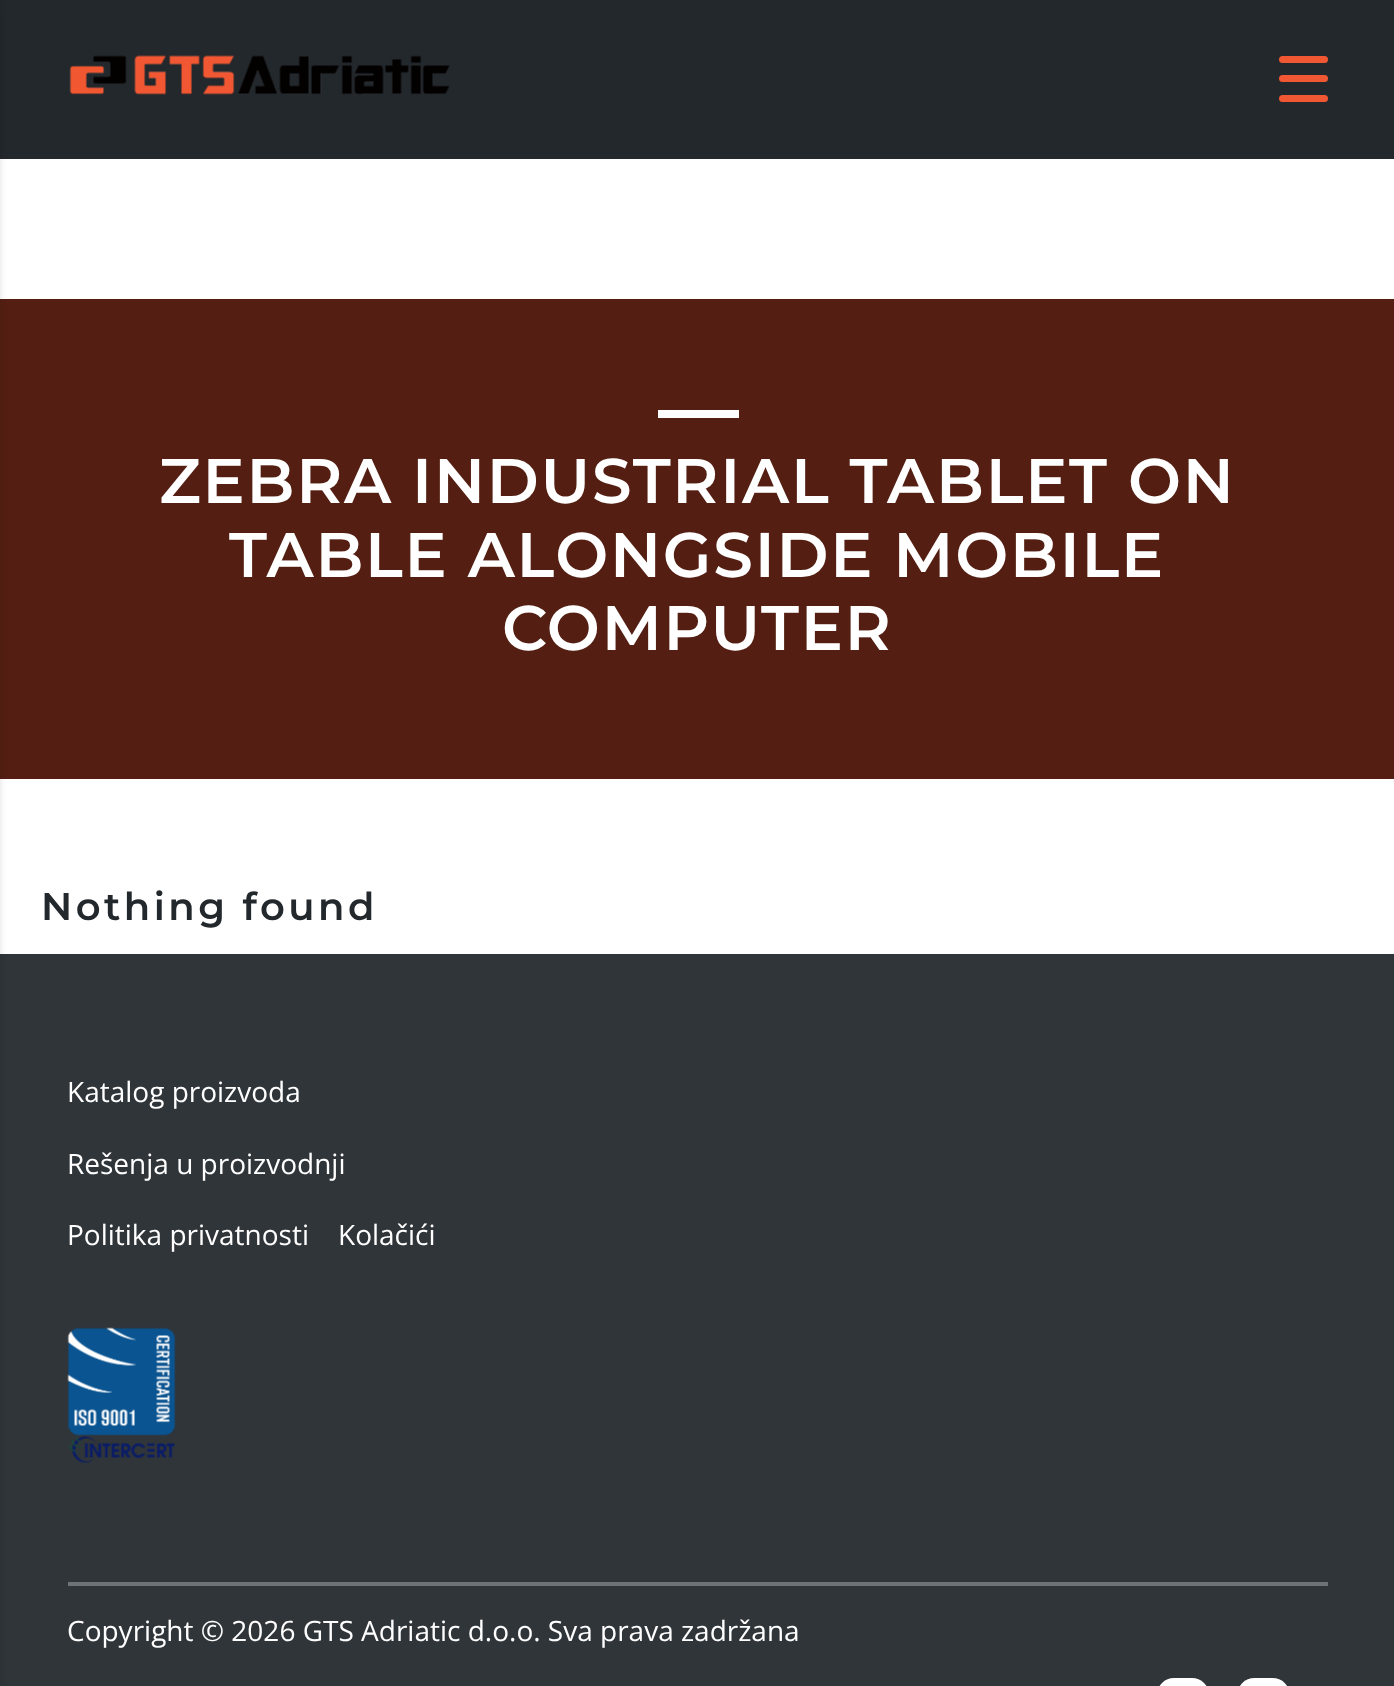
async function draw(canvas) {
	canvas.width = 1394;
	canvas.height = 1686;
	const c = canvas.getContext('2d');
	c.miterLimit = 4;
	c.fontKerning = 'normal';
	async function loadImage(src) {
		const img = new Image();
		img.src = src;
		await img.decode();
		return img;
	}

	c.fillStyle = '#fff';
	c.fillRect(0, 0, 1394, 1686);
	c.fillStyle = '#23282d';
	c.fillRect(0, 0, 1394, 159);
	c.drawImage(await loadImage('img1.png'), 69, 55, 381, 40);
	c.fillStyle = '#f15732';
	c.beginPath();
	c.roundRect(1279, 56, 49, 7, 3.5);
	c.fill();
	c.beginPath();
	c.roundRect(1279, 75, 49, 7, 3.5);
	c.fill();
	c.beginPath();
	c.roundRect(1279, 95, 49, 7, 3.5);
	c.fill();
	c.fillStyle = '#541f12';
	c.fillRect(0, 299, 1394, 480);
	c.fillStyle = '#30353a';
	c.fillRect(0, 954, 1394, 732);
	c.fillStyle = '#00000033';
	c.filter = 'blur(4.5px)';
	c.beginPath();
	c.rect(-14, 5, 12, 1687);
	c.fill();
	c.filter = 'none';
	c.fillStyle = '#fff';
	c.fillRect(658, 410, 81, 8);
	c.letterSpacing = '1.75px';
	c.font = '600 63px Montserrat';
	for (const [text, x, y] of [
		['ZEBRA INDUSTRIAL TABLET ON', 159, 503],
		['TABLE ALONGSIDE MOBILE', 229, 577],
		['COMPUTER', 502, 650],
	]) {
		c.fillText(text, x, y);
	}
	c.letterSpacing = '3.5px';
	c.font = '600 38.5px Montserrat';
	c.fillStyle = '#23282d';
	c.fillText('Nothing found', 41, 920);
	c.letterSpacing = '0px';
	c.font = '28px Open Sans';
	c.fillStyle = '#fff';
	for (const [text, x, y] of [
		['Katalog proizvoda', 67, 1102],
		['Rešenja u proizvodnji', 67, 1174],
		['Politika privatnosti', 67, 1245],
		['Kolačići', 338, 1245],
	]) {
		c.fillText(text, x, y);
	}
	c.drawImage(await loadImage('img2.png'), 67, 1327, 109, 136);
	c.fillStyle = '#6e7275';
	c.fillRect(68, 1582, 1260, 4);
	c.fillStyle = '#fff';
	c.fillText('Copyright © 2026 GTS Adriatic d.o.o. Sva prava zadržana', 67, 1641);
	c.beginPath();
	c.roundRect(1157, 1678, 52, 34, 26);
	c.fill();
	c.beginPath();
	c.roundRect(1237, 1678, 53, 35, 26.5);
	c.fill();
}

draw(document.querySelector('canvas'));
